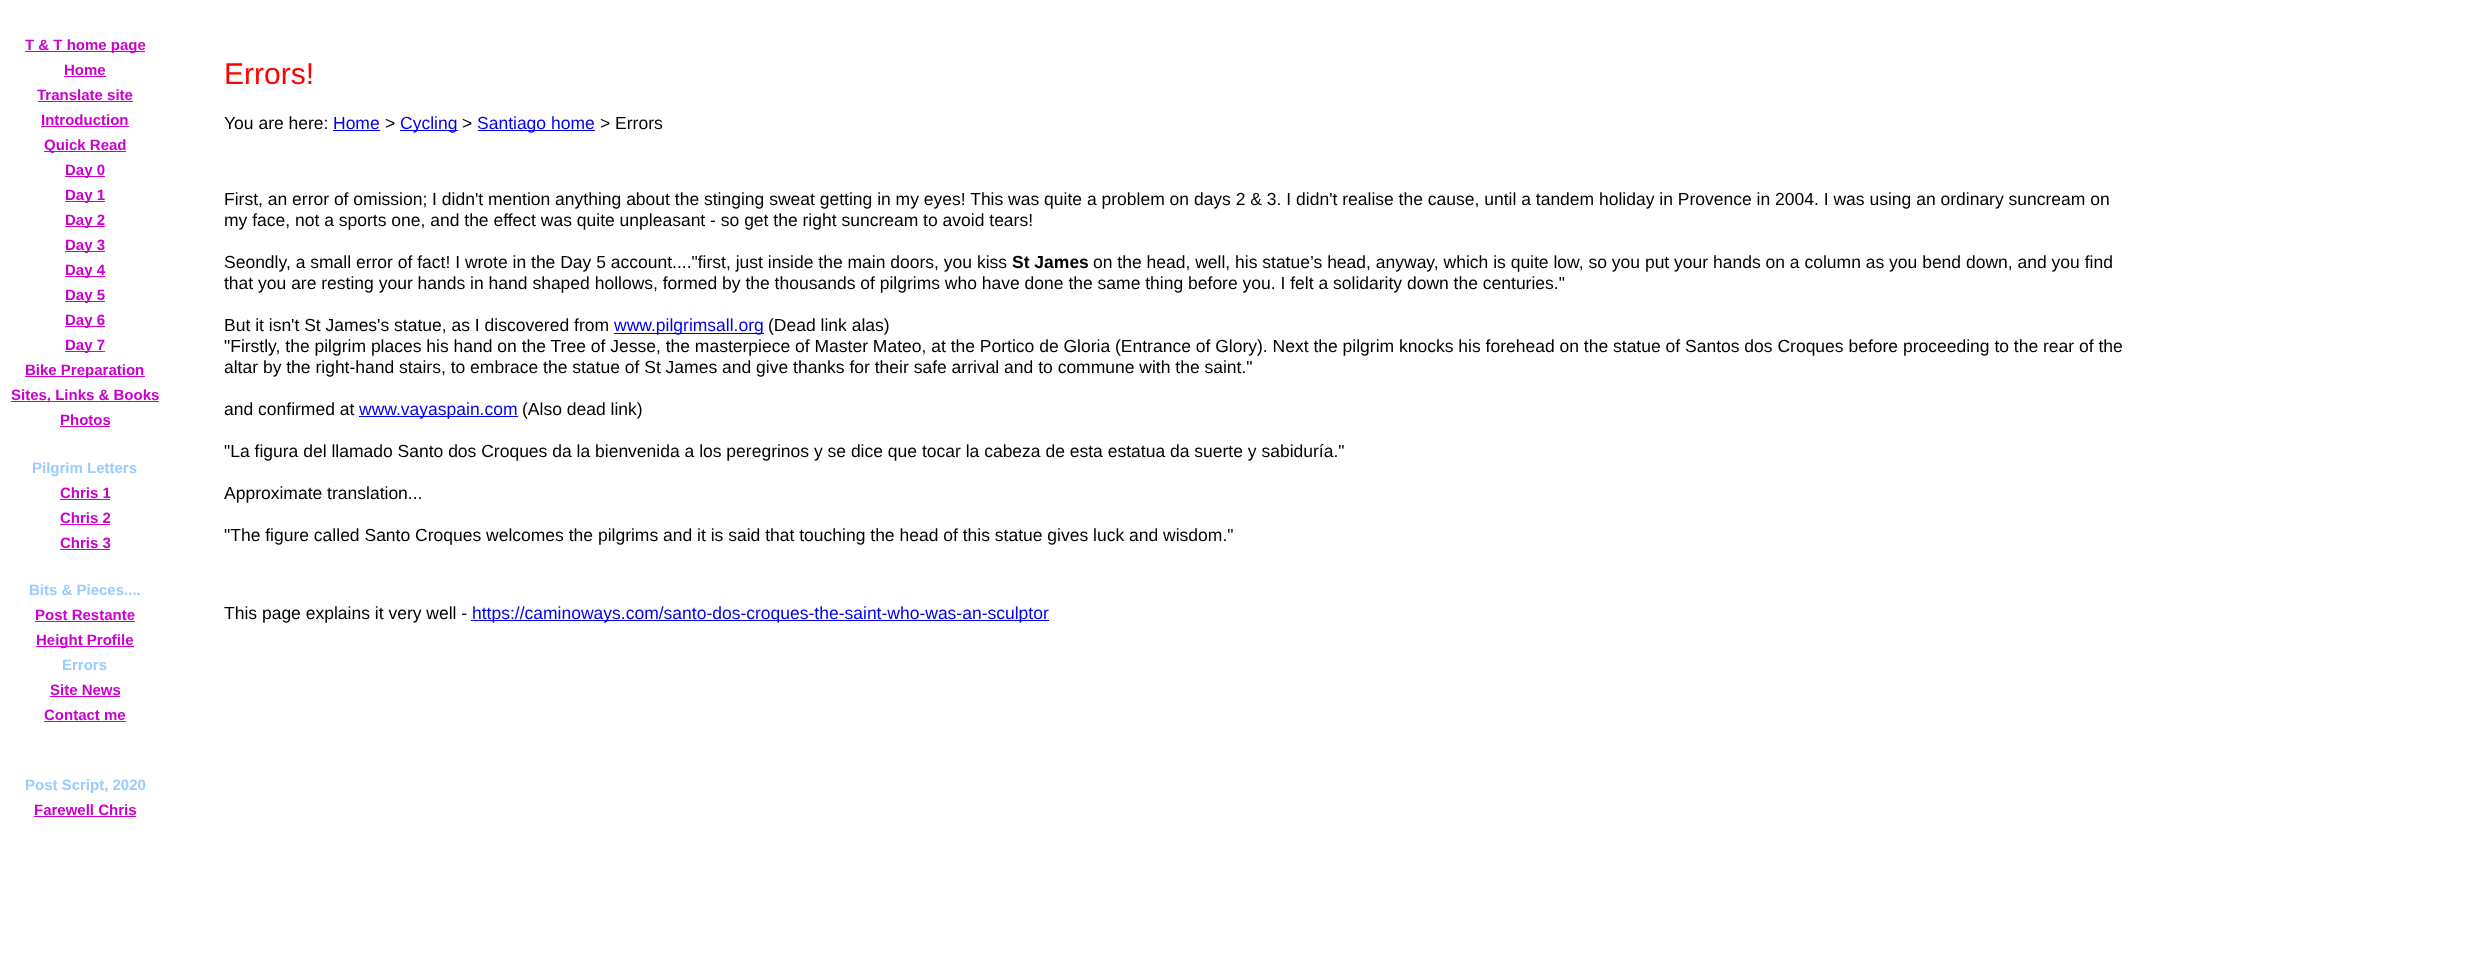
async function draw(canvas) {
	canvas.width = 2477;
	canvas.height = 961;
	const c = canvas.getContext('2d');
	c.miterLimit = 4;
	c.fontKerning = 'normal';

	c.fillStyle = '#fff';
	c.fillRect(0, 0, 2477, 961);
	c.fillStyle = '#c0c';
	c.fillRect(25, 51, 120, 1);
	c.font = 'bold 15px Liberation Sans';
	c.fillText('T & T home page', 25, 50);
	c.fillText('Home', 64, 75);
	c.fillRect(64, 76, 42, 1);
	c.fillText('Translate site', 37, 100);
	c.fillRect(38, 101, 95, 1);
	c.fillText('Introduction', 41, 125);
	c.fillRect(41, 126, 88, 1);
	c.fillRect(44, 151, 82, 1);
	c.fillText('Quick Read', 44, 150);
	c.fillRect(65, 176, 40, 1);
	c.fillText('Day 0', 65, 175);
	c.fillRect(65, 201, 40, 1);
	c.fillText('Day 1', 65, 200);
	c.fillRect(65, 226, 40, 1);
	c.fillText('Day 2', 65, 225);
	c.fillRect(65, 251, 40, 1);
	c.fillText('Day 3', 65, 250);
	c.fillRect(65, 276, 40, 1);
	c.fillText('Day 4', 65, 275);
	c.fillRect(65, 301, 40, 1);
	c.fillText('Day 5', 65, 300);
	c.fillRect(65, 326, 40, 1);
	c.fillText('Day 6', 65, 325);
	c.fillRect(65, 351, 40, 1);
	c.fillText('Day 7', 65, 350);
	c.fillRect(25, 376, 120, 1);
	c.fillText('Bike Preparation', 25, 375);
	c.fillRect(11, 401, 148, 1);
	c.fillText('Sites, Links & Books', 11, 400);
	c.fillText('Photos', 60, 425);
	c.fillRect(60, 426, 50, 1);
	c.fillStyle = '#9cf';
	c.fillText('Pilgrim Letters', 32, 473);
	c.fillStyle = '#c0c';
	c.fillText('Chris 1', 60, 498);
	c.fillRect(60, 499, 50, 1);
	c.fillText('Chris 2', 60, 523);
	c.fillRect(60, 524, 50, 1);
	c.fillText('Chris 3', 60, 548);
	c.fillRect(60, 549, 50, 1);
	c.fillStyle = '#9cf';
	c.fillText('Bits & Pieces....', 29, 595);
	c.fillStyle = '#c0c';
	c.fillText('Post Restante', 35, 620);
	c.fillRect(35, 621, 100, 1);
	c.fillRect(36, 646, 98, 1);
	c.fillText('Height Profile', 36, 645);
	c.fillStyle = '#9cf';
	c.fillText('Errors', 62, 670);
	c.fillStyle = '#c0c';
	c.fillText('Site News', 50, 695);
	c.fillRect(50, 696, 70, 1);
	c.fillText('Contact me', 44, 720);
	c.fillRect(44, 721, 82, 1);
	c.fillStyle = '#9cf';
	c.fillText('Post Script, 2020', 25, 790);
	c.fillStyle = '#c0c';
	c.fillText('Farewell Chris', 34, 815);
	c.fillRect(34, 816, 102, 1);
	c.font = '30px Liberation Sans';
	c.fillStyle = '#f00';
	c.fillText('Errors!', 224, 84);
	c.font = '17.5px Liberation Sans';
	c.fillStyle = '#000';
	c.fillText('You are here:', 224, 129);
	c.fillStyle = '#00e';
	c.fillText('Home', 333, 129);
	c.fillRect(333, 130, 47, 1);
	c.fillStyle = '#000';
	c.fillText('>', 385, 129);
	c.fillStyle = '#00e';
	c.fillRect(400, 130, 58, 1);
	c.fillText('Cycling', 400, 129);
	c.fillStyle = '#000';
	c.fillText('>', 462, 129);
	c.fillStyle = '#00e';
	c.fillRect(478, 130, 117, 1);
	c.fillText('Santiago home', 477, 129);
	c.fillStyle = '#000';
	for (const [text, x, y] of [
		['> Errors', 600, 129],
		['First, an error of omission; I didn\'t mention anything about the stinging sweat getting in my eyes! This was quite a problem on days 2 & 3. I didn\'t realise the cause, until a tandem holiday in Provence in 2004. I was using an ordinary suncream on', 224, 205],
		['my face, not a sports one, and the effect was quite unpleasant - so get the right suncream to avoid tears!', 224, 226],
		['Seondly, a small error of fact! I wrote in the Day 5 account...."first, just inside the main doors, you kiss', 224, 268],
	]) {
		c.fillText(text, x, y);
	}
	c.font = 'bold 17.5px Liberation Sans';
	c.fillText('St James', 1012, 268);
	c.font = '17.5px Liberation Sans';
	for (const [text, x, y] of [
		['on the head, well, his statue’s head, anyway, which is quite low, so you put your hands on a column as you bend down, and you find', 1093, 268],
		['that you are resting your hands in hand shaped hollows, formed by the thousands of pilgrims who have done the same thing before you. I felt a solidarity down the centuries."', 224, 289],
		['But it isn\'t St James\'s statue, as I discovered from', 224, 331],
	]) {
		c.fillText(text, x, y);
	}
	c.fillStyle = '#00e';
	c.fillRect(614, 333, 150, 1);
	c.fillText('www.pilgrimsall.org', 614, 331);
	c.fillStyle = '#000';
	for (const [text, x, y] of [
		['(Dead link alas)', 768, 331],
		['"Firstly, the pilgrim places his hand on the Tree of Jesse, the masterpiece of Master Mateo, at the Portico de Gloria (Entrance of Glory). Next the pilgrim knocks his forehead on the statue of Santos dos Croques before proceeding to the rear of the', 224, 352],
		['altar by the right-hand stairs, to embrace the statue of St James and give thanks for their safe arrival and to commune with the saint."', 224, 373],
		['and confirmed at', 224, 415],
	]) {
		c.fillText(text, x, y);
	}
	c.fillStyle = '#00e';
	c.fillRect(359, 416, 159, 1);
	c.fillText('www.vayaspain.com', 359, 415);
	c.fillStyle = '#000';
	for (const [text, x, y] of [
		['(Also dead link)', 522, 415],
		['"La figura del llamado Santo dos Croques da la bienvenida a los peregrinos y se dice que tocar la cabeza de esta estatua da suerte y sabiduría."', 224, 457],
		['Approximate translation...', 224, 499],
		['"The figure called Santo Croques welcomes the pilgrims and it is said that touching the head of this statue gives luck and wisdom."', 224, 541],
		['This page explains it very well -', 224, 619],
	]) {
		c.fillText(text, x, y);
	}
	c.fillStyle = '#00e';
	c.fillRect(471, 620, 578, 1);
	c.fillText('https://caminoways.com/santo-dos-croques-the-saint-who-was-an-sculptor', 472, 619);
}

draw(document.querySelector('canvas'));
